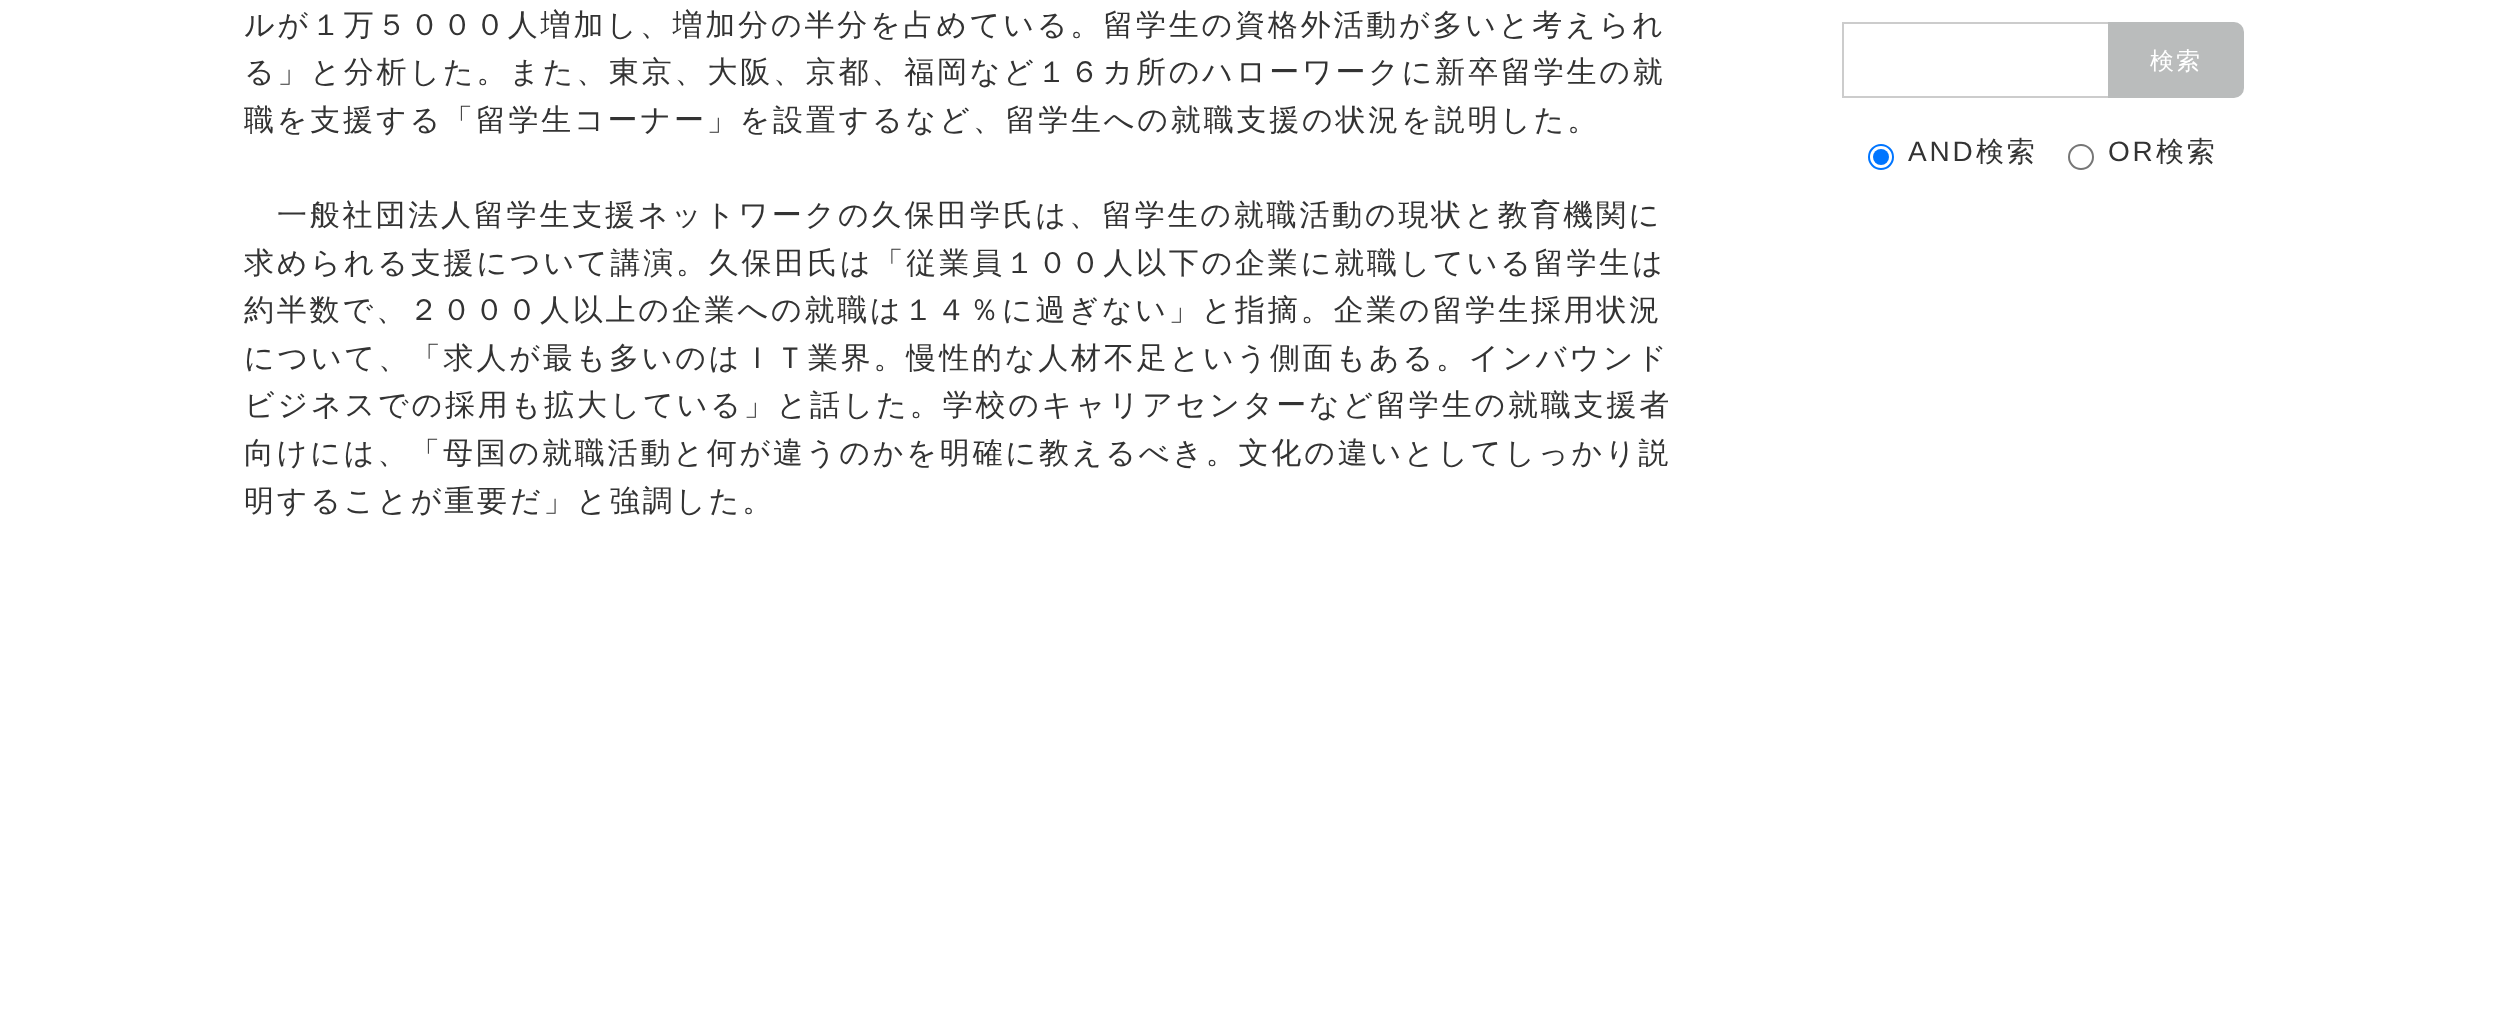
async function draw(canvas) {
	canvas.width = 2517;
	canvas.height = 1016;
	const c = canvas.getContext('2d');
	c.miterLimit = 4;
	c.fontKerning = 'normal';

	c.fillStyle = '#fff';
	c.fillRect(0, 0, 2517, 1016);
	c.letterSpacing = '2.8px';
	c.font = '500 30px WenQuanYi Zen Hei';
	c.fillStyle = '#333';
	for (const [text, x, y] of [
		['ルが１万５０００人増加し、増加分の半分を占めている。留学生の資格外活動が多いと考えられ', 244, 35],
		['る」と分析した。また、東京、大阪、京都、福岡など１６カ所のハローワークに新卒留学生の就', 244, 82],
		['職を支援する「留学生コーナー」を設置するなど、留学生への就職支援の状況を説明した。', 244, 130],
		['一般社団法人留学生支援ネットワークの久保田学氏は、留学生の就職活動の現状と教育機関に', 277, 225],
		['求められる支援について講演。久保田氏は「従業員１００人以下の企業に就職している留学生は', 244, 273],
		['約半数で、２０００人以上の企業への就職は１４％に過ぎない」と指摘。企業の留学生採用状況', 244, 320],
		['について、「求人が最も多いのはＩＴ業界。慢性的な人材不足という側面もある。インバウンド', 244, 368],
		['ビジネスでの採用も拡大している」と話した。学校のキャリアセンターなど留学生の就職支援者', 244, 415],
		['向けには、「母国の就職活動と何が違うのかを明確に教えるべき。文化の違いとしてしっかり説', 244, 463],
		['明することが重要だ」と強調した。', 244, 511],
	]) {
		c.fillText(text, x, y);
	}
	c.strokeStyle = '#ccc';
	c.lineWidth = 2;
	c.strokeRect(1843, 23, 266, 74);
	c.fillStyle = '#babcbc';
	c.beginPath();
	c.roundRect(2109, 23, 134, 74, [0, 9, 9, 0]);
	c.fill();
	c.strokeStyle = '#babcbc';
	c.stroke();
	c.letterSpacing = '2px';
	c.font = '500 24px WenQuanYi Zen Hei';
	c.fillStyle = '#fff';
	c.fillText('検索', 2150, 69);
	c.beginPath();
	c.arc(1881, 157, 12, 0, 2 * Math.PI);
	c.strokeStyle = '#0075ff';
	c.stroke();
	c.fillStyle = '#0075ff';
	c.beginPath();
	c.arc(1881, 157, 8, 0, 2 * Math.PI);
	c.fill();
	c.letterSpacing = '2.8px';
	c.font = '28px Liberation Sans';
	c.fillStyle = '#333';
	c.fillText('AND', 1908, 161);
	c.font = '500 28px WenQuanYi Zen Hei';
	c.fillText('検索', 1976, 161);
	c.beginPath();
	c.arc(2081, 157, 12, 0, 2 * Math.PI);
	c.strokeStyle = '#767676';
	c.stroke();
	c.font = '28px Liberation Sans';
	c.fillText('OR', 2108, 161);
	c.font = '500 28px WenQuanYi Zen Hei';
	c.fillText('検索', 2156, 161);
}

draw(document.querySelector('canvas'));
